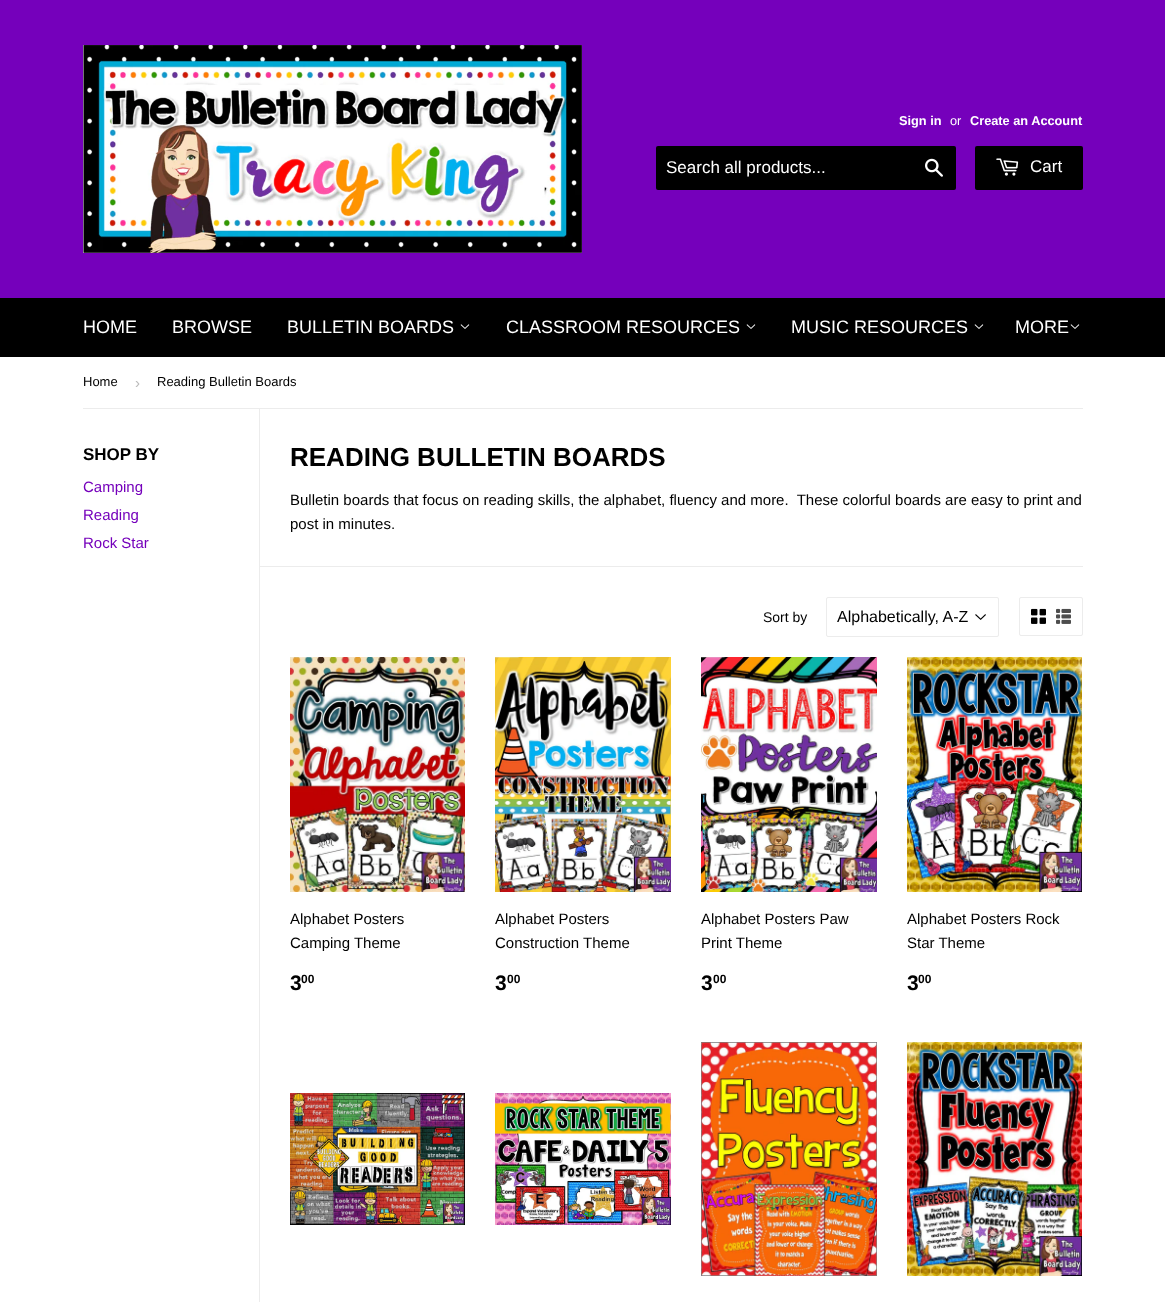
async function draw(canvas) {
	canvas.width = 1165;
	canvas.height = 1302;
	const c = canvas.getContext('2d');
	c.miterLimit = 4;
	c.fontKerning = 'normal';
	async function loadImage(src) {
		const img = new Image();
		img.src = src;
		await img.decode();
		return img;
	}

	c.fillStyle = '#fff';
	c.fillRect(0, 0, 1165, 1302);
	c.fillStyle = '#7500bb';
	c.fillRect(0, 0, 1165, 298);
	c.drawImage(await loadImage('img1.png'), 83, 45, 499, 208);
	c.font = 'bold 12.75px Liberation Sans';
	c.fillStyle = '#fff';
	c.fillText('Sign in', 899, 125);
	c.font = '12.75px Liberation Sans';
	c.fillText('or', 950, 125);
	c.font = 'bold 12.75px Liberation Sans';
	c.fillText('Create an Account', 970, 125);
	c.fillStyle = '#000';
	c.beginPath();
	c.roundRect(656, 146, 300, 44, 2);
	c.fill();
	c.font = '17px Liberation Sans';
	c.fillStyle = '#fff';
	c.fillText('Search all products...', 666, 173);
	c.drawImage(await loadImage('img2.png'), 925, 158, 18, 19);
	c.fillStyle = '#000';
	c.beginPath();
	c.roundRect(975, 146, 108, 44, 2);
	c.fill();
	c.drawImage(await loadImage('img3.png'), 996, 158, 23, 18);
	c.fillStyle = '#fff';
	c.fillText('Cart', 1030, 172);
	c.fillStyle = '#000';
	c.fillRect(0, 298, 1165, 59);
	c.font = '18px Liberation Sans';
	c.fillStyle = '#fff';
	for (const [text, x, y] of [
		['HOME', 83, 333],
		['BROWSE', 172, 333],
		['BULLETIN BOARDS', 287, 333],
	]) {
		c.fillText(text, x, y);
	}
	c.drawImage(await loadImage('img4.png'), 460, 324, 10, 5);
	c.fillText('CLASSROOM RESOURCES', 506, 333);
	c.drawImage(await loadImage('img4.png'), 746, 324, 10, 5);
	c.fillText('MUSIC RESOURCES', 791, 333);
	c.drawImage(await loadImage('img4.png'), 974, 324, 10, 5);
	c.fillText('MORE', 1015, 333);
	c.drawImage(await loadImage('img4.png'), 1070, 324, 10, 5);
	c.fillStyle = '#ececec';
	c.fillRect(83, 408, 1000, 1);
	c.font = '13px Liberation Sans';
	c.fillStyle = '#000';
	c.fillText('Home', 83, 386);
	c.font = '15px Liberation Sans';
	c.fillStyle = '#bbb';
	c.fillText('›', 135, 388);
	c.font = '13px Liberation Sans';
	c.fillStyle = '#000';
	c.fillText('Reading Bulletin Boards', 157, 386);
	c.font = 'bold 17px Liberation Sans';
	c.fillText('SHOP BY', 83, 460);
	c.font = '15px Liberation Sans';
	c.fillStyle = '#7500bb';
	for (const [text, x, y] of [
		['Camping', 83, 492],
		['Reading', 83, 520],
		['Rock Star', 83, 548],
	]) {
		c.fillText(text, x, y);
	}
	c.fillStyle = '#ececec';
	c.fillRect(259, 409, 1, 893);
	c.font = 'bold 26px Liberation Sans';
	c.fillStyle = '#000';
	c.fillText('READING BULLETIN BOARDS', 290, 466);
	c.font = '15px Liberation Sans';
	c.fillText('Bulletin boards that focus on reading skills, the alphabet, fluency and more.  These colorful boards are easy to print and', 290, 505);
	c.fillText('post in minutes.', 290, 529);
	c.fillStyle = '#ececec';
	c.fillRect(260, 566, 823, 1);
	c.font = '14px Liberation Sans';
	c.fillStyle = '#000';
	c.fillText('Sort by', 763, 622);
	c.drawImage(await loadImage('img5.png'), 975, 614, 11, 6);
	c.beginPath();
	c.roundRect(826.5, 597.5, 172, 39, 1.5);
	c.strokeStyle = '#ececec';
	c.stroke();
	c.font = '16px Liberation Sans';
	c.fillText('Alphabetically, A-Z', 837, 622);
	c.beginPath();
	c.roundRect(1019.5, 597.5, 63, 38, 1.5);
	c.stroke();
	c.drawImage(await loadImage('img6.png'), 1031, 608, 15, 16);
	c.drawImage(await loadImage('img7.png'), 1056, 608, 15, 16);
	c.drawImage(await loadImage('img8.png'), 290, 657, 175, 235);
	c.font = '15px Liberation Sans';
	c.fillText('Alphabet Posters', 290, 924);
	c.fillText('Camping Theme', 290, 948);
	c.font = 'bold 21px Liberation Sans';
	c.fillText('3', 290, 990);
	c.font = 'bold 12px Liberation Sans';
	c.fillText('00', 301, 983);
	c.drawImage(await loadImage('img9.png'), 495, 657, 176, 235);
	c.font = '15px Liberation Sans';
	c.fillText('Alphabet Posters', 495, 924);
	c.fillText('Construction Theme', 495, 948);
	c.font = 'bold 21px Liberation Sans';
	c.fillText('3', 495, 990);
	c.font = 'bold 12px Liberation Sans';
	c.fillText('00', 507, 983);
	c.drawImage(await loadImage('img10.png'), 701, 657, 176, 235);
	c.font = '15px Liberation Sans';
	c.fillText('Alphabet Posters Paw', 701, 924);
	c.fillText('Print Theme', 701, 948);
	c.font = 'bold 21px Liberation Sans';
	c.fillText('3', 701, 990);
	c.font = 'bold 12px Liberation Sans';
	c.fillText('00', 713, 983);
	c.drawImage(await loadImage('img11.png'), 907, 657, 175, 235);
	c.font = '15px Liberation Sans';
	c.fillText('Alphabet Posters Rock', 907, 924);
	c.fillText('Star Theme', 907, 948);
	c.font = 'bold 21px Liberation Sans';
	c.fillText('3', 907, 990);
	c.font = 'bold 12px Liberation Sans';
	c.fillText('00', 918, 983);
	c.drawImage(await loadImage('img12.png'), 290, 1093, 175, 132);
	c.drawImage(await loadImage('img13.png'), 495, 1093, 176, 132);
	c.drawImage(await loadImage('img14.png'), 701, 1042, 176, 234);
	c.drawImage(await loadImage('img15.png'), 907, 1042, 175, 234);
}

draw(document.querySelector('canvas'));
